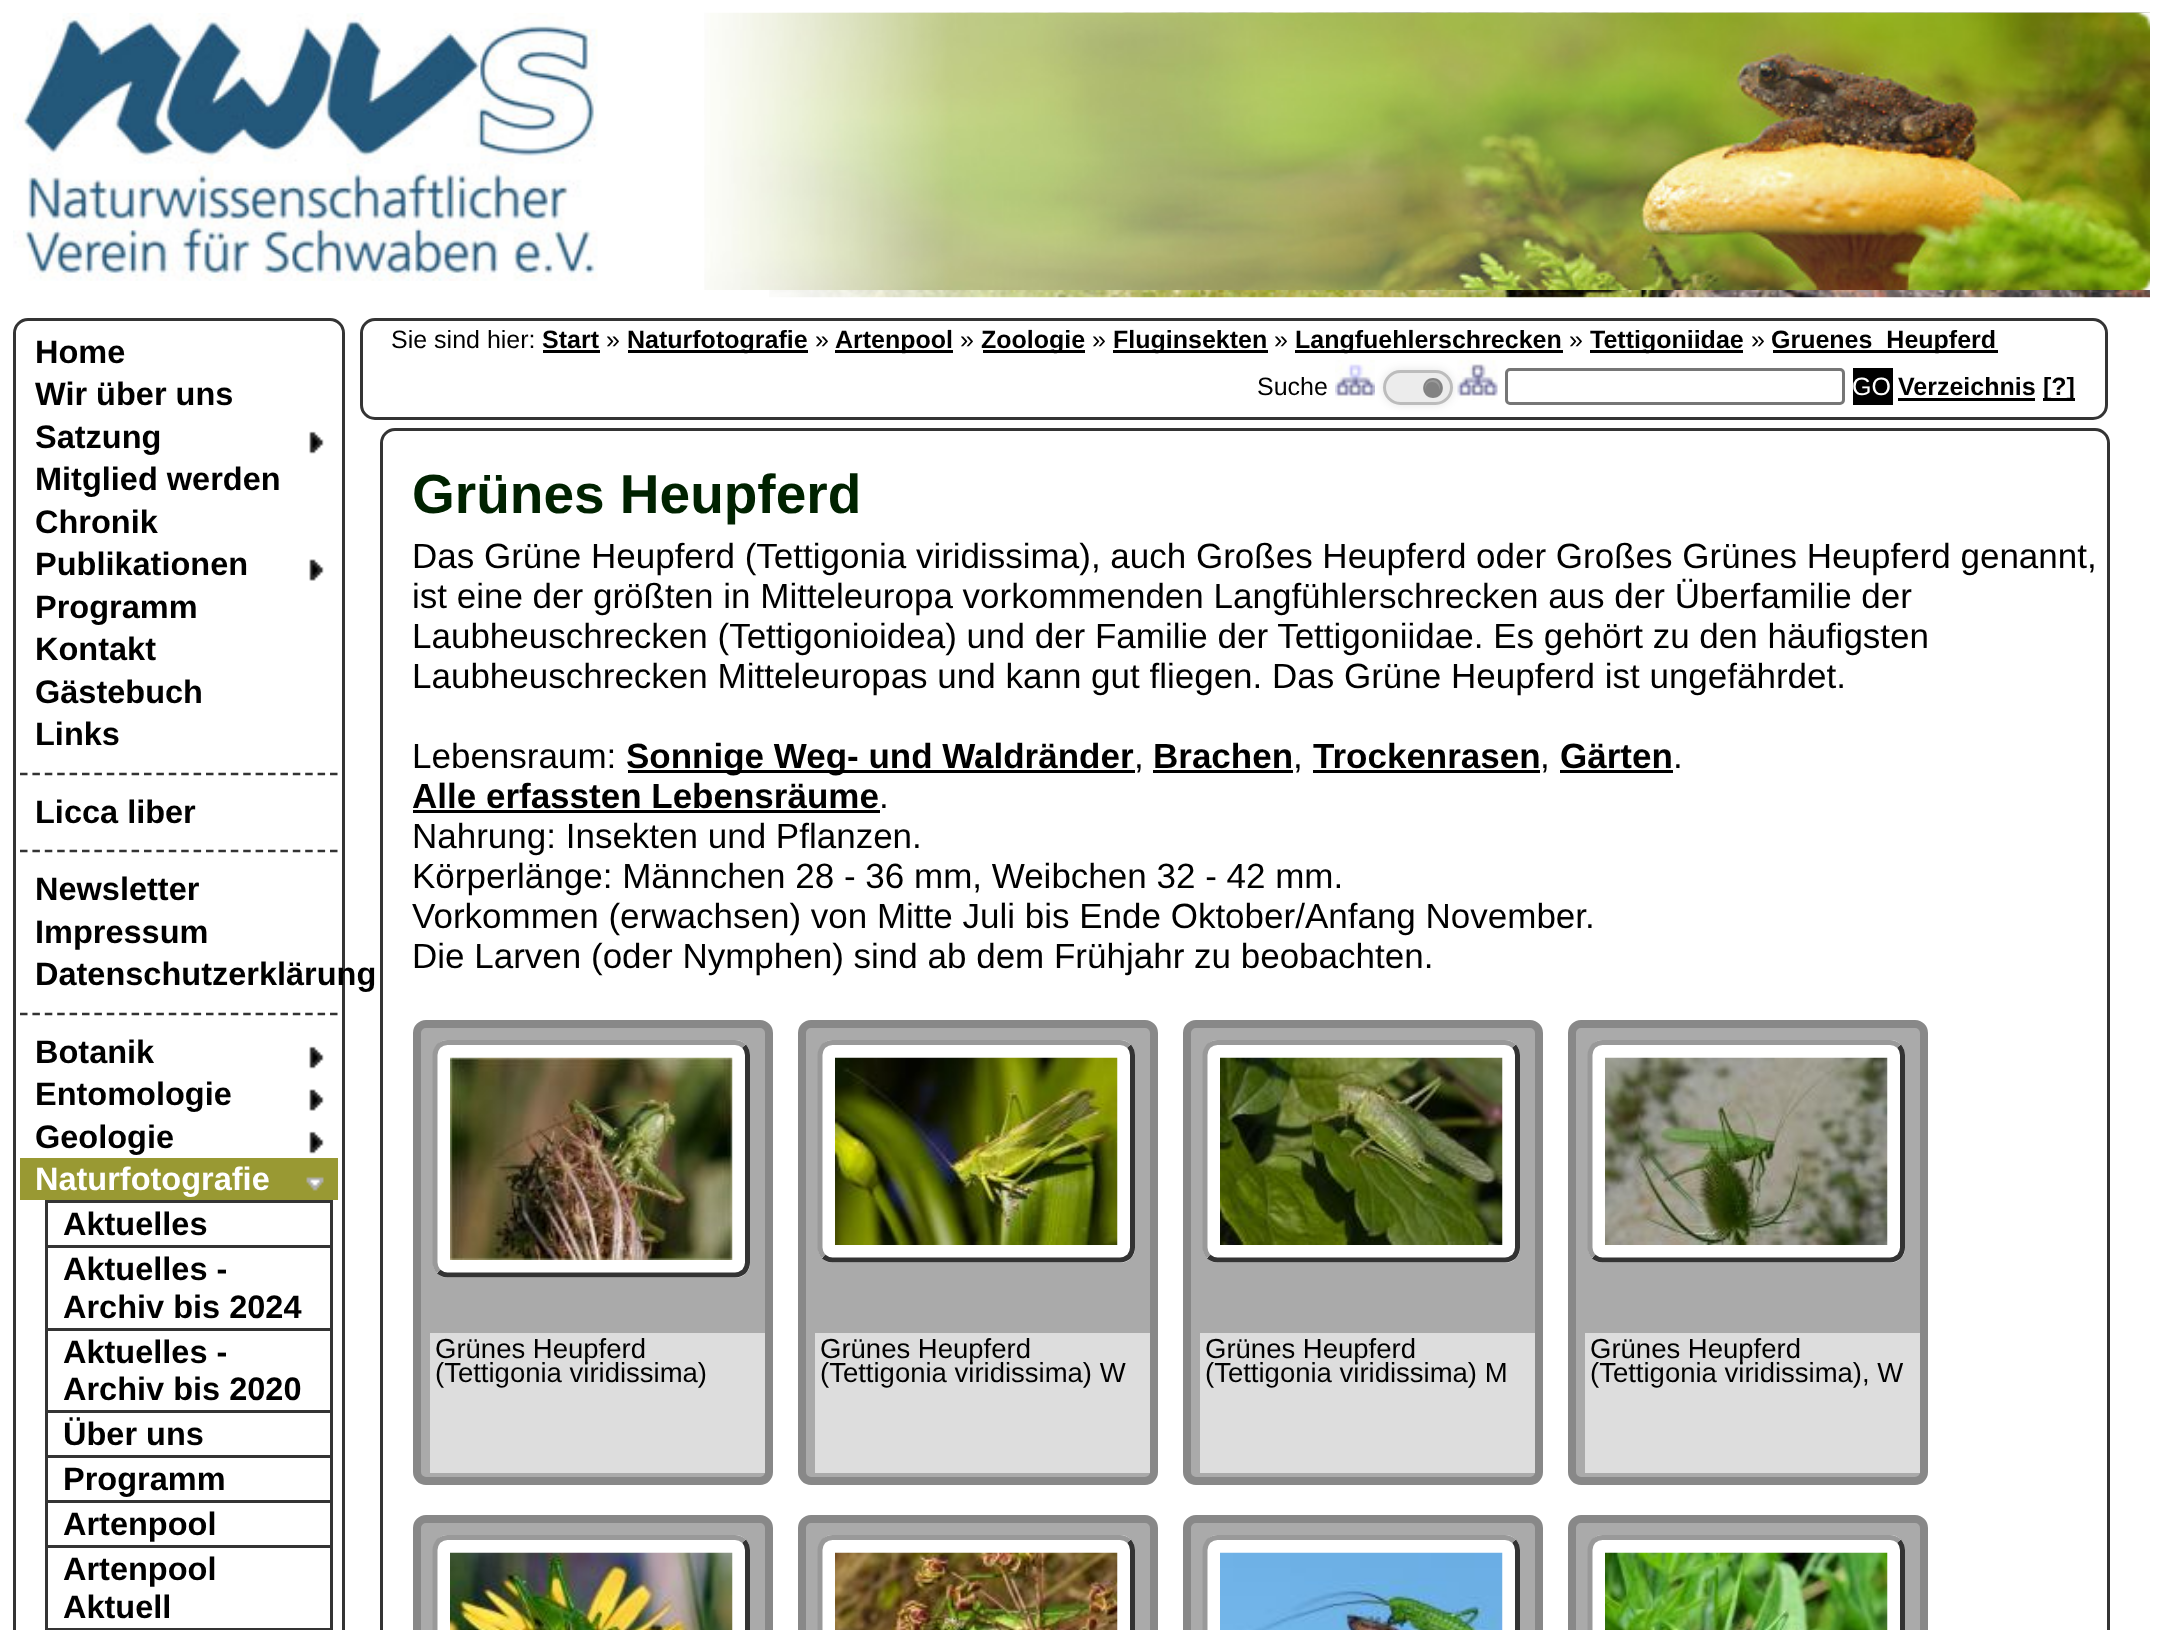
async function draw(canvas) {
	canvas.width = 2180;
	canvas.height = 1630;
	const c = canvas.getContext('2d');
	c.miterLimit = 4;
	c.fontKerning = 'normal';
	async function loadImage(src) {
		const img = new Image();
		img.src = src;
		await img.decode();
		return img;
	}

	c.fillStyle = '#fff';
	c.fillRect(0, 0, 2180, 1630);
	c.drawImage(await loadImage('img1.png'), 13, 13, 585, 268);
	c.drawImage(await loadImage('img2.png'), 769, 12, 1381, 286);
	c.drawImage(await loadImage('img3.png'), 704, 12, 1446, 278);
	c.beginPath();
	c.roundRect(14.5, 319.5, 329, 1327, 13.5);
	c.strokeStyle = '#343434';
	c.lineWidth = 3;
	c.stroke();
	c.font = 'bold 32.5px Liberation Sans';
	c.fillStyle = '#000';
	for (const [text, x, y] of [
		['Home', 35, 363],
		['Wir über uns', 35, 405],
		['Satzung', 35, 448],
	]) {
		c.fillText(text, x, y);
	}
	c.drawImage(await loadImage('img4.png'), 309, 431, 15, 23);
	for (const [text, x, y] of [
		['Mitglied werden', 35, 490],
		['Chronik', 35, 533],
		['Publikationen', 35, 575],
	]) {
		c.fillText(text, x, y);
	}
	c.drawImage(await loadImage('img5.png'), 309, 559, 15, 22);
	for (const [text, x, y] of [
		['Programm', 35, 618],
		['Kontakt', 35, 660],
		['Gästebuch', 35, 703],
		['Links', 35, 745],
	]) {
		c.fillText(text, x, y);
	}
	c.beginPath();
	c.moveTo(20, 774);
	c.lineTo(337.5, 774);
	c.strokeStyle = '#333';
	c.lineWidth = 2.5;
	c.setLineDash([7.5, 4.9]);
	c.stroke();
	c.fillText('Licca liber', 35, 823);
	c.beginPath();
	c.moveTo(20, 851);
	c.lineTo(337.5, 851);
	c.stroke();
	for (const [text, x, y] of [
		['Newsletter', 35, 900],
		['Impressum', 35, 943],
		['Datenschutzerklärung', 35, 985],
	]) {
		c.fillText(text, x, y);
	}
	c.beginPath();
	c.moveTo(20, 1014);
	c.lineTo(337.5, 1014);
	c.stroke();
	c.fillText('Botanik', 35, 1063);
	c.drawImage(await loadImage('img4.png'), 309, 1046, 15, 23);
	c.fillText('Entomologie', 35, 1105);
	c.drawImage(await loadImage('img5.png'), 309, 1089, 15, 22);
	c.fillText('Geologie', 35, 1148);
	c.drawImage(await loadImage('img4.png'), 309, 1131, 15, 23);
	c.fillStyle = '#993';
	c.fillRect(20, 1158, 318, 42);
	c.fillStyle = '#fff';
	c.fillText('Naturfotografie', 35, 1190);
	c.drawImage(await loadImage('img6.png'), 306, 1176, 18, 15);
	for (const [x, y, w, h, color] of [
		[45, 1200, 288, 3, '#343434'],
		[330, 1200, 3, 45, '#343434'],
		[45, 1200, 3, 45, '#343434'],
	]) {
		c.fillStyle = color;
		c.fillRect(x, y, w, h);
	}
	c.fillStyle = '#000';
	c.fillText('Aktuelles', 63, 1235);
	for (const [x, y, w, h, color] of [
		[45, 1245, 288, 3, '#343434'],
		[330, 1245, 3, 83, '#343434'],
		[45, 1245, 3, 83, '#343434'],
	]) {
		c.fillStyle = color;
		c.fillRect(x, y, w, h);
	}
	c.fillStyle = '#000';
	c.fillText('Aktuelles -', 63, 1280);
	c.fillText('Archiv bis 2024', 63, 1318);
	for (const [x, y, w, h, color] of [
		[45, 1328, 288, 3, '#343434'],
		[330, 1328, 3, 82, '#343434'],
		[45, 1328, 3, 82, '#343434'],
	]) {
		c.fillStyle = color;
		c.fillRect(x, y, w, h);
	}
	c.fillStyle = '#000';
	c.fillText('Aktuelles -', 63, 1363);
	c.fillText('Archiv bis 2020', 63, 1400);
	for (const [x, y, w, h, color] of [
		[45, 1410, 288, 3, '#343434'],
		[330, 1410, 3, 45, '#343434'],
		[45, 1410, 3, 45, '#343434'],
	]) {
		c.fillStyle = color;
		c.fillRect(x, y, w, h);
	}
	c.fillStyle = '#000';
	c.fillText('Über uns', 63, 1445);
	for (const [x, y, w, h, color] of [
		[45, 1455, 288, 3, '#343434'],
		[330, 1455, 3, 45, '#343434'],
		[45, 1455, 3, 45, '#343434'],
	]) {
		c.fillStyle = color;
		c.fillRect(x, y, w, h);
	}
	c.fillStyle = '#000';
	c.fillText('Programm', 63, 1490);
	for (const [x, y, w, h, color] of [
		[45, 1500, 288, 3, '#343434'],
		[330, 1500, 3, 45, '#343434'],
		[45, 1500, 3, 45, '#343434'],
	]) {
		c.fillStyle = color;
		c.fillRect(x, y, w, h);
	}
	c.fillStyle = '#000';
	c.fillText('Artenpool', 63, 1535);
	for (const [x, y, w, h, color] of [
		[45, 1545, 288, 3, '#343434'],
		[330, 1545, 3, 83, '#343434'],
		[45, 1545, 3, 83, '#343434'],
	]) {
		c.fillStyle = color;
		c.fillRect(x, y, w, h);
	}
	c.fillStyle = '#000';
	c.fillText('Artenpool', 63, 1580);
	c.fillText('Aktuell', 63, 1618);
	c.fillStyle = '#343434';
	c.fillRect(45, 1628, 288, 2);
	c.beginPath();
	c.roundRect(361.5, 319.5, 1745, 99, 13.5);
	c.strokeStyle = '#343434';
	c.lineWidth = 3;
	c.setLineDash([]);
	c.stroke();
	c.font = '25px Liberation Sans';
	c.fillStyle = '#000';
	c.fillText('Sie sind hier:', 391, 348);
	c.font = 'bold 25px Liberation Sans';
	c.fillText('Start', 542, 348);
	c.fillRect(543, 350, 57, 3);
	c.font = '25px Liberation Sans';
	c.fillText('»', 606, 348);
	c.fillRect(628, 350, 180, 3);
	c.font = 'bold 25px Liberation Sans';
	c.fillText('Naturfotografie', 627, 348);
	c.font = '25px Liberation Sans';
	c.fillText('»', 815, 348);
	c.fillRect(835, 350, 118, 3);
	c.font = 'bold 25px Liberation Sans';
	c.fillText('Artenpool', 835, 348);
	c.font = '25px Liberation Sans';
	c.fillText('»', 960, 348);
	c.fillRect(983, 350, 102, 3);
	c.font = 'bold 25px Liberation Sans';
	c.fillText('Zoologie', 981, 348);
	c.font = '25px Liberation Sans';
	c.fillText('»', 1092, 348);
	c.fillRect(1113, 350, 155, 3);
	c.font = 'bold 25px Liberation Sans';
	c.fillText('Fluginsekten', 1113, 348);
	c.font = '25px Liberation Sans';
	c.fillText('»', 1274, 348);
	c.fillRect(1295, 350, 268, 3);
	c.font = 'bold 25px Liberation Sans';
	c.fillText('Langfuehlerschrecken', 1295, 348);
	c.font = '25px Liberation Sans';
	c.fillText('»', 1569, 348);
	c.fillRect(1590, 350, 153, 3);
	c.font = 'bold 25px Liberation Sans';
	c.fillText('Tettigoniidae', 1590, 348);
	c.font = '25px Liberation Sans';
	c.fillText('»', 1751, 348);
	c.fillRect(1773, 350, 225, 3);
	c.font = 'bold 25px Liberation Sans';
	c.fillText('Gruenes_Heupferd', 1771, 348);
	c.font = '25px Liberation Sans';
	c.fillText('Suche', 1257, 395);
	c.drawImage(await loadImage('img7.png'), 1335, 360, 40, 40);
	c.drawImage(await loadImage('img8.png'), 1457, 360, 41, 40);
	c.fillStyle = '#0000001a';
	c.filter = 'blur(5px)';
	c.beginPath();
	c.roundRect(1383, 370, 70, 35, 17.5);
	c.fill();
	c.filter = 'none';
	c.fillStyle = '#ececec';
	c.beginPath();
	c.roundRect(1383, 370, 70, 35, 17.5);
	c.fill();
	c.beginPath();
	c.roundRect(1384.5, 371.5, 67, 32, 16);
	c.strokeStyle = '#00000033';
	c.stroke();
	c.fillStyle = '#bbb';
	c.beginPath();
	c.arc(1433, 388, 10, 0, 2 * Math.PI);
	c.fill();
	c.fillStyle = '#ddd';
	c.beginPath();
	c.moveTo(1432, 382);
	c.bezierCurveTo(1437, 382, 1439.5, 386, 1439.5, 390);
	c.bezierCurveTo(1440, 388.5, 1440, 386.5, 1439.5, 384.5);
	c.bezierCurveTo(1436, 376, 1423, 380.5, 1425.5, 389.5);
	c.bezierCurveTo(1425.5, 385.5, 1427.5, 382, 1432, 382);
	c.closePath();
	c.fill();
	c.fillStyle = '#0000004d';
	c.beginPath();
	c.moveTo(1433, 378);
	c.bezierCurveTo(1446, 378, 1446, 398, 1433, 398);
	c.bezierCurveTo(1420, 398, 1420, 378, 1433, 378);
	c.closePath();
	c.fill();
	c.beginPath();
	c.roundRect(1506.5, 369.5, 337, 34, 3.5);
	c.strokeStyle = '#767676';
	c.stroke();
	c.fillStyle = '#000';
	c.fillRect(1853, 368, 40, 37);
	c.fillStyle = '#fff';
	c.fillText('GO', 1852, 395);
	c.font = 'bold 25px Liberation Sans';
	c.fillStyle = '#000';
	c.fillText('Verzeichnis', 1898, 395);
	c.fillRect(1898, 398, 137, 3);
	c.fillRect(2043, 398, 32, 3);
	c.fillText('[?]', 2043, 395);
	c.beginPath();
	c.roundRect(381.5, 429.5, 1727, 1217, 13.5);
	c.strokeStyle = '#343434';
	c.stroke();
	c.font = 'bold 55px Liberation Sans';
	c.fillStyle = '#020';
	c.fillText('Grünes Heupferd', 412, 513);
	c.font = '35px Liberation Sans';
	c.fillStyle = '#000';
	for (const [text, x, y] of [
		['Das Grüne Heupferd (Tettigonia viridissima), auch Großes Heupferd oder Großes Grünes Heupferd genannt,', 412, 568],
		['ist eine der größten in Mitteleuropa vorkommenden Langfühlerschrecken aus der Überfamilie der', 412, 608],
		['Laubheuschrecken (Tettigonioidea) und der Familie der Tettigoniidae. Es gehört zu den häufigsten', 412, 648],
		['Laubheuschrecken Mitteleuropas und kann gut fliegen. Das Grüne Heupferd ist ungefährdet.', 412, 688],
		['Lebensraum:', 412, 768],
	]) {
		c.fillText(text, x, y);
	}
	c.fillRect(628, 770, 507, 3);
	c.font = 'bold 35px Liberation Sans';
	c.fillText('Sonnige Weg- und Waldränder', 626, 768);
	c.font = '35px Liberation Sans';
	c.fillText(',', 1134, 768);
	c.font = 'bold 35px Liberation Sans';
	c.fillText('Brachen', 1153, 768);
	c.fillRect(1153, 770, 140, 3);
	c.font = '35px Liberation Sans';
	c.fillText(',', 1293, 768);
	c.font = 'bold 35px Liberation Sans';
	c.fillText('Trockenrasen', 1313, 768);
	c.fillRect(1313, 770, 227, 3);
	c.font = '35px Liberation Sans';
	c.fillText(',', 1540, 768);
	c.font = 'bold 35px Liberation Sans';
	c.fillText('Gärten', 1560, 768);
	c.fillRect(1560, 770, 113, 3);
	c.font = '35px Liberation Sans';
	c.fillText('.', 1673, 768);
	c.font = 'bold 35px Liberation Sans';
	c.fillText('Alle erfassten Lebensräume', 412, 808);
	c.fillRect(413, 810, 467, 3);
	c.font = '35px Liberation Sans';
	for (const [text, x, y] of [
		['.', 879, 808],
		['Nahrung: Insekten und Pflanzen.', 412, 848],
		['Körperlänge: Männchen 28 - 36 mm, Weibchen 32 - 42 mm.', 412, 888],
		['Vorkommen (erwachsen) von Mitte Juli bis Ende Oktober/Anfang November.', 412, 928],
		['Die Larven (oder Nymphen) sind ab dem Frühjahr zu beobachten.', 412, 968],
	]) {
		c.fillText(text, x, y);
	}
	c.fillStyle = '#aaa';
	c.beginPath();
	c.roundRect(417, 1024, 352, 457, 9);
	c.fill();
	c.strokeStyle = '#888';
	c.lineWidth = 8;
	c.stroke();
	c.fillStyle = '#fff';
	c.beginPath();
	c.roundRect(433, 1040, 317, 238, 15);
	c.fill();
	c.beginPath();
	c.moveTo(744, 1046);
	c.bezierCurveTo(746, 1048.5, 747.5, 1051.5, 747.5, 1055);
	c.lineTo(747.5, 1262.5);
	c.bezierCurveTo(747.5, 1266, 746, 1269, 744, 1271.5);
	c.bezierCurveTo(741.5, 1273.5, 738.5, 1275, 735, 1275);
	c.lineTo(447.5, 1275);
	c.bezierCurveTo(444, 1275, 441, 1273.5, 438.5, 1271.5);
	c.strokeStyle = '#333';
	c.lineWidth = 5;
	c.stroke();
	c.beginPath();
	c.moveTo(438.5, 1271.5);
	c.bezierCurveTo(436.5, 1269, 435, 1266, 435, 1262.5);
	c.lineTo(435, 1055);
	c.bezierCurveTo(435, 1051.5, 436.5, 1048.5, 438.5, 1046);
	c.bezierCurveTo(441, 1044, 444, 1042.5, 447.5, 1042.5);
	c.lineTo(735, 1042.5);
	c.bezierCurveTo(738.5, 1042.5, 741.5, 1044, 744, 1046);
	c.strokeStyle = '#999';
	c.stroke();
	c.drawImage(await loadImage('img9.png'), 450, 1057, 283, 203);
	c.fillStyle = '#ddd';
	c.fillRect(430, 1333, 335, 140);
	c.font = '27.5px Liberation Sans';
	c.fillStyle = '#000';
	c.fillText('Grünes Heupferd', 435, 1358);
	c.fillText('(Tettigonia viridissima)', 435, 1382);
	c.fillStyle = '#aaa';
	c.beginPath();
	c.roundRect(802, 1024, 352, 457, 9);
	c.fill();
	c.strokeStyle = '#888';
	c.lineWidth = 8;
	c.stroke();
	c.fillStyle = '#fff';
	c.beginPath();
	c.roundRect(818, 1040, 317, 223, 15);
	c.fill();
	c.beginPath();
	c.moveTo(1129, 1046);
	c.bezierCurveTo(1131, 1048.5, 1132.5, 1051.5, 1132.5, 1055);
	c.lineTo(1132.5, 1247.5);
	c.bezierCurveTo(1132.5, 1251, 1131, 1254, 1129, 1256.5);
	c.bezierCurveTo(1126.5, 1258.5, 1123.5, 1260, 1120, 1260);
	c.lineTo(832.5, 1260);
	c.bezierCurveTo(829, 1260, 826, 1258.5, 823.5, 1256.5);
	c.strokeStyle = '#333';
	c.lineWidth = 5;
	c.stroke();
	c.beginPath();
	c.moveTo(823.5, 1256.5);
	c.bezierCurveTo(821.5, 1254, 820, 1251, 820, 1247.5);
	c.lineTo(820, 1055);
	c.bezierCurveTo(820, 1051.5, 821.5, 1048.5, 823.5, 1046);
	c.bezierCurveTo(826, 1044, 829, 1042.5, 832.5, 1042.5);
	c.lineTo(1120, 1042.5);
	c.bezierCurveTo(1123.5, 1042.5, 1126.5, 1044, 1129, 1046);
	c.strokeStyle = '#999';
	c.stroke();
	c.drawImage(await loadImage('img10.png'), 835, 1057, 283, 188);
	c.fillStyle = '#ddd';
	c.fillRect(815, 1333, 335, 140);
	c.fillStyle = '#000';
	c.fillText('Grünes Heupferd', 820, 1358);
	c.fillText('(Tettigonia viridissima) W', 820, 1382);
	c.fillStyle = '#aaa';
	c.beginPath();
	c.roundRect(1187, 1024, 352, 457, 9);
	c.fill();
	c.strokeStyle = '#888';
	c.lineWidth = 8;
	c.stroke();
	c.fillStyle = '#fff';
	c.beginPath();
	c.roundRect(1203, 1040, 317, 223, 15);
	c.fill();
	c.beginPath();
	c.moveTo(1514, 1046);
	c.bezierCurveTo(1516, 1048.5, 1517.5, 1051.5, 1517.5, 1055);
	c.lineTo(1517.5, 1247.5);
	c.bezierCurveTo(1517.5, 1251, 1516, 1254, 1514, 1256.5);
	c.bezierCurveTo(1511.5, 1258.5, 1508.5, 1260, 1505, 1260);
	c.lineTo(1217.5, 1260);
	c.bezierCurveTo(1214, 1260, 1211, 1258.5, 1208.5, 1256.5);
	c.strokeStyle = '#333';
	c.lineWidth = 5;
	c.stroke();
	c.beginPath();
	c.moveTo(1208.5, 1256.5);
	c.bezierCurveTo(1206.5, 1254, 1205, 1251, 1205, 1247.5);
	c.lineTo(1205, 1055);
	c.bezierCurveTo(1205, 1051.5, 1206.5, 1048.5, 1208.5, 1046);
	c.bezierCurveTo(1211, 1044, 1214, 1042.5, 1217.5, 1042.5);
	c.lineTo(1505, 1042.5);
	c.bezierCurveTo(1508.5, 1042.5, 1511.5, 1044, 1514, 1046);
	c.strokeStyle = '#999';
	c.stroke();
	c.drawImage(await loadImage('img11.png'), 1220, 1057, 283, 188);
	c.fillStyle = '#ddd';
	c.fillRect(1200, 1333, 335, 140);
	c.fillStyle = '#000';
	c.fillText('Grünes Heupferd', 1205, 1358);
	c.fillText('(Tettigonia viridissima) M', 1205, 1382);
	c.fillStyle = '#aaa';
	c.beginPath();
	c.roundRect(1572, 1024, 352, 457, 9);
	c.fill();
	c.strokeStyle = '#888';
	c.lineWidth = 8;
	c.stroke();
	c.fillStyle = '#fff';
	c.beginPath();
	c.roundRect(1588, 1040, 317, 223, 15);
	c.fill();
	c.beginPath();
	c.moveTo(1899, 1046);
	c.bezierCurveTo(1901, 1048.5, 1902.5, 1051.5, 1902.5, 1055);
	c.lineTo(1902.5, 1247.5);
	c.bezierCurveTo(1902.5, 1251, 1901, 1254, 1899, 1256.5);
	c.bezierCurveTo(1896.5, 1258.5, 1893.5, 1260, 1890, 1260);
	c.lineTo(1602.5, 1260);
	c.bezierCurveTo(1599, 1260, 1596, 1258.5, 1593.5, 1256.5);
	c.strokeStyle = '#333';
	c.lineWidth = 5;
	c.stroke();
	c.beginPath();
	c.moveTo(1593.5, 1256.5);
	c.bezierCurveTo(1591.5, 1254, 1590, 1251, 1590, 1247.5);
	c.lineTo(1590, 1055);
	c.bezierCurveTo(1590, 1051.5, 1591.5, 1048.5, 1593.5, 1046);
	c.bezierCurveTo(1596, 1044, 1599, 1042.5, 1602.5, 1042.5);
	c.lineTo(1890, 1042.5);
	c.bezierCurveTo(1893.5, 1042.5, 1896.5, 1044, 1899, 1046);
	c.strokeStyle = '#999';
	c.stroke();
	c.drawImage(await loadImage('img12.png'), 1605, 1057, 283, 188);
	c.fillStyle = '#ddd';
	c.fillRect(1585, 1333, 335, 140);
	c.fillStyle = '#000';
	c.fillText('Grünes Heupferd', 1590, 1358);
	c.fillText('(Tettigonia viridissima), W', 1590, 1382);
	c.fillStyle = '#aaa';
	c.beginPath();
	c.roundRect(417, 1519, 352, 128, 9);
	c.fill();
	c.strokeStyle = '#888';
	c.lineWidth = 8;
	c.stroke();
	c.fillStyle = '#fff';
	c.beginPath();
	c.roundRect(433, 1535, 317, 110, 15);
	c.fill();
	c.beginPath();
	c.moveTo(744, 1541);
	c.bezierCurveTo(746, 1543.5, 747.5, 1546.5, 747.5, 1550);
	c.lineTo(747.5, 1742.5);
	c.bezierCurveTo(747.5, 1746, 746, 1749, 744, 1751.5);
	c.bezierCurveTo(741.5, 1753.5, 738.5, 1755, 735, 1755);
	c.lineTo(447.5, 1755);
	c.bezierCurveTo(444, 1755, 441, 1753.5, 438.5, 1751.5);
	c.strokeStyle = '#333';
	c.lineWidth = 5;
	c.stroke();
	c.beginPath();
	c.moveTo(438.5, 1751.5);
	c.bezierCurveTo(436.5, 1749, 435, 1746, 435, 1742.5);
	c.lineTo(435, 1550);
	c.bezierCurveTo(435, 1546.5, 436.5, 1543.5, 438.5, 1541);
	c.bezierCurveTo(441, 1539, 444, 1537.5, 447.5, 1537.5);
	c.lineTo(735, 1537.5);
	c.bezierCurveTo(738.5, 1537.5, 741.5, 1539, 744, 1541);
	c.strokeStyle = '#999';
	c.stroke();
	c.drawImage(await loadImage('img13.png'), 450, 1552, 283, 78);
	c.fillStyle = '#aaa';
	c.beginPath();
	c.roundRect(802, 1519, 352, 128, 9);
	c.fill();
	c.strokeStyle = '#888';
	c.lineWidth = 8;
	c.stroke();
	c.fillStyle = '#fff';
	c.beginPath();
	c.roundRect(818, 1535, 317, 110, 15);
	c.fill();
	c.beginPath();
	c.moveTo(1129, 1541);
	c.bezierCurveTo(1131, 1543.5, 1132.5, 1546.5, 1132.5, 1550);
	c.lineTo(1132.5, 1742.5);
	c.bezierCurveTo(1132.5, 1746, 1131, 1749, 1129, 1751.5);
	c.bezierCurveTo(1126.5, 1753.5, 1123.5, 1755, 1120, 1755);
	c.lineTo(832.5, 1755);
	c.bezierCurveTo(829, 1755, 826, 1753.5, 823.5, 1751.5);
	c.strokeStyle = '#333';
	c.lineWidth = 5;
	c.stroke();
	c.beginPath();
	c.moveTo(823.5, 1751.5);
	c.bezierCurveTo(821.5, 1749, 820, 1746, 820, 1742.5);
	c.lineTo(820, 1550);
	c.bezierCurveTo(820, 1546.5, 821.5, 1543.5, 823.5, 1541);
	c.bezierCurveTo(826, 1539, 829, 1537.5, 832.5, 1537.5);
	c.lineTo(1120, 1537.5);
	c.bezierCurveTo(1123.5, 1537.5, 1126.5, 1539, 1129, 1541);
	c.strokeStyle = '#999';
	c.stroke();
	c.drawImage(await loadImage('img14.png'), 835, 1552, 283, 78);
	c.fillStyle = '#aaa';
	c.beginPath();
	c.roundRect(1187, 1519, 352, 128, 9);
	c.fill();
	c.strokeStyle = '#888';
	c.lineWidth = 8;
	c.stroke();
	c.fillStyle = '#fff';
	c.beginPath();
	c.roundRect(1203, 1535, 317, 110, 15);
	c.fill();
	c.beginPath();
	c.moveTo(1514, 1541);
	c.bezierCurveTo(1516, 1543.5, 1517.5, 1546.5, 1517.5, 1550);
	c.lineTo(1517.5, 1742.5);
	c.bezierCurveTo(1517.5, 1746, 1516, 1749, 1514, 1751.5);
	c.bezierCurveTo(1511.5, 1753.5, 1508.5, 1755, 1505, 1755);
	c.lineTo(1217.5, 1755);
	c.bezierCurveTo(1214, 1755, 1211, 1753.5, 1208.5, 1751.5);
	c.strokeStyle = '#333';
	c.lineWidth = 5;
	c.stroke();
	c.beginPath();
	c.moveTo(1208.5, 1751.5);
	c.bezierCurveTo(1206.5, 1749, 1205, 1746, 1205, 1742.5);
	c.lineTo(1205, 1550);
	c.bezierCurveTo(1205, 1546.5, 1206.5, 1543.5, 1208.5, 1541);
	c.bezierCurveTo(1211, 1539, 1214, 1537.5, 1217.5, 1537.5);
	c.lineTo(1505, 1537.5);
	c.bezierCurveTo(1508.5, 1537.5, 1511.5, 1539, 1514, 1541);
	c.strokeStyle = '#999';
	c.stroke();
	c.drawImage(await loadImage('img15.png'), 1220, 1552, 283, 78);
	c.fillStyle = '#aaa';
	c.beginPath();
	c.roundRect(1572, 1519, 352, 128, 9);
	c.fill();
	c.strokeStyle = '#888';
	c.lineWidth = 8;
	c.stroke();
	c.fillStyle = '#fff';
	c.beginPath();
	c.roundRect(1588, 1535, 317, 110, 15);
	c.fill();
	c.beginPath();
	c.moveTo(1899, 1541);
	c.bezierCurveTo(1901, 1543.5, 1902.5, 1546.5, 1902.5, 1550);
	c.lineTo(1902.5, 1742.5);
	c.bezierCurveTo(1902.5, 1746, 1901, 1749, 1899, 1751.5);
	c.bezierCurveTo(1896.5, 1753.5, 1893.5, 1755, 1890, 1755);
	c.lineTo(1602.5, 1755);
	c.bezierCurveTo(1599, 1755, 1596, 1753.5, 1593.5, 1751.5);
	c.strokeStyle = '#333';
	c.lineWidth = 5;
	c.stroke();
	c.beginPath();
	c.moveTo(1593.5, 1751.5);
	c.bezierCurveTo(1591.5, 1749, 1590, 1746, 1590, 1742.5);
	c.lineTo(1590, 1550);
	c.bezierCurveTo(1590, 1546.5, 1591.5, 1543.5, 1593.5, 1541);
	c.bezierCurveTo(1596, 1539, 1599, 1537.5, 1602.5, 1537.5);
	c.lineTo(1890, 1537.5);
	c.bezierCurveTo(1893.5, 1537.5, 1896.5, 1539, 1899, 1541);
	c.strokeStyle = '#999';
	c.stroke();
	c.drawImage(await loadImage('img16.png'), 1605, 1552, 283, 78);
}

draw(document.querySelector('canvas'));
